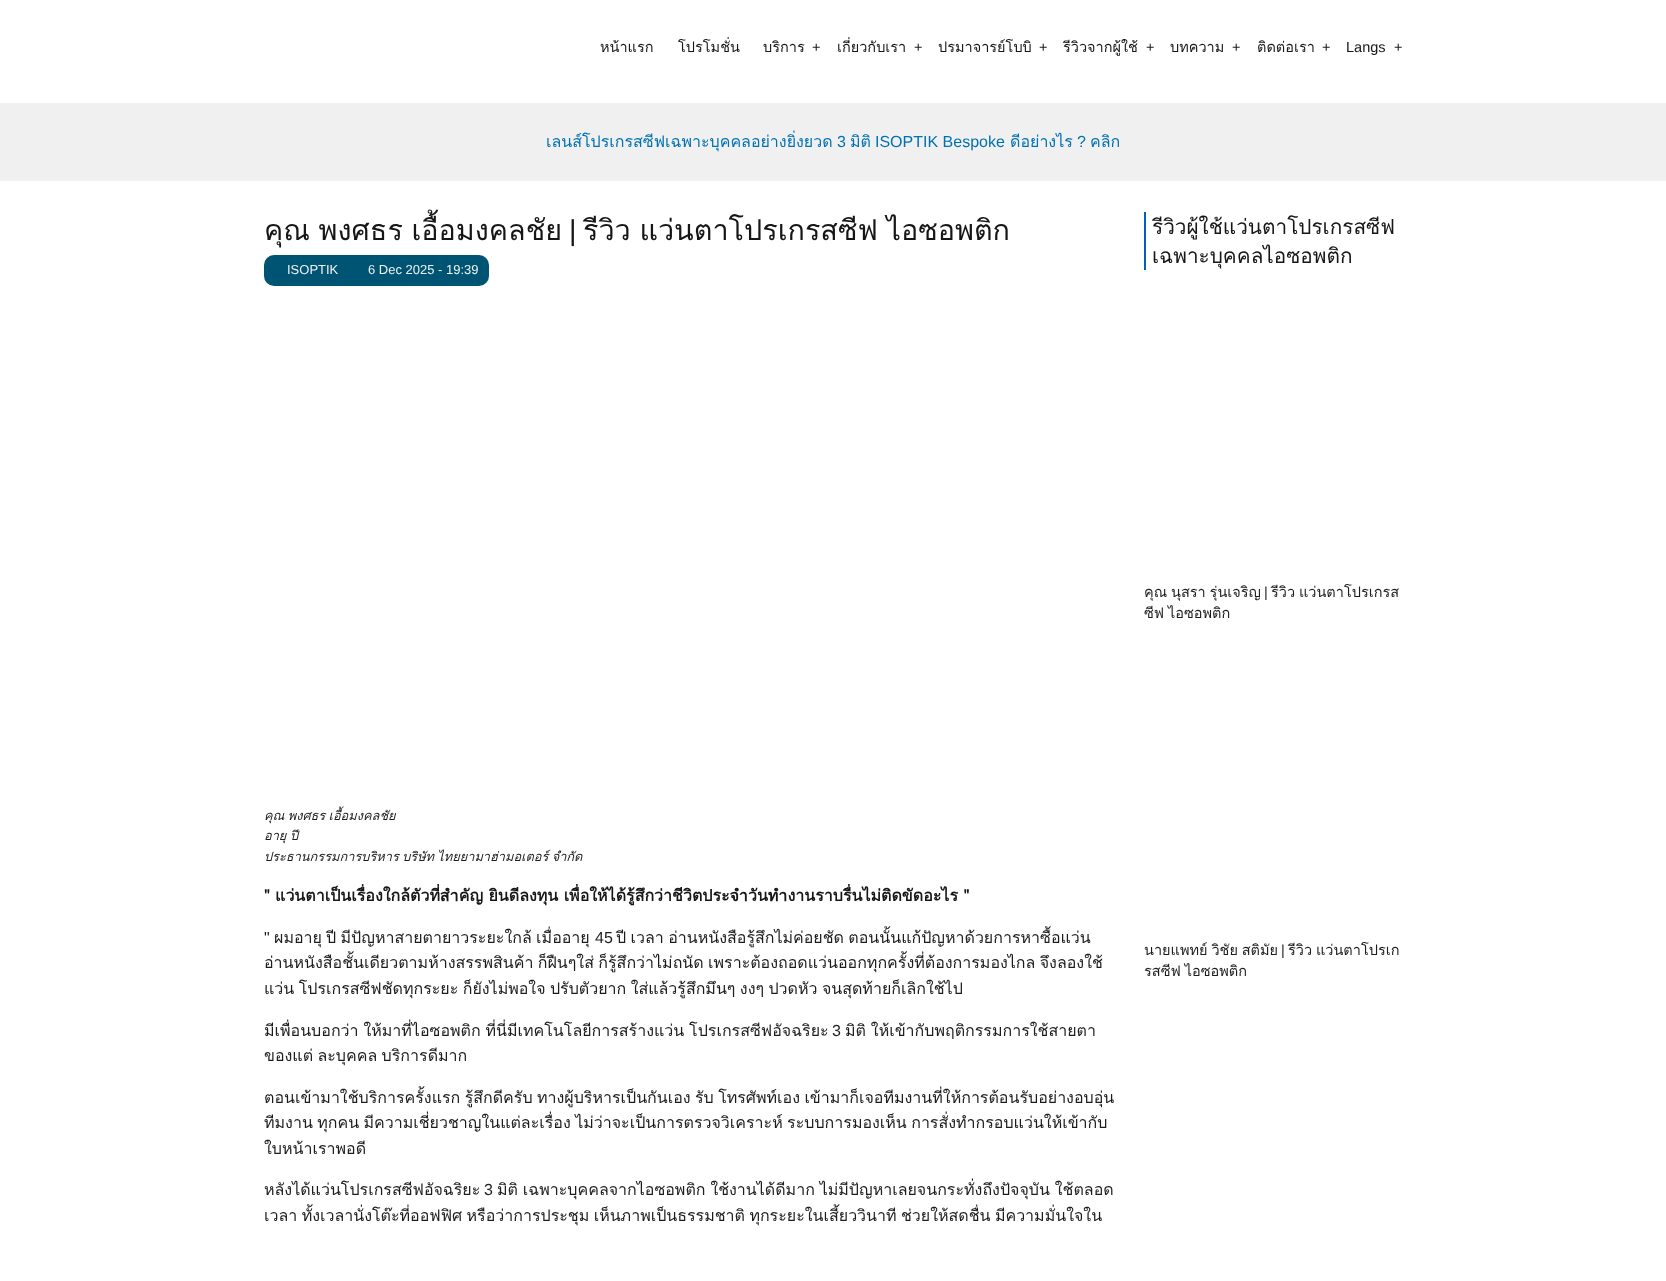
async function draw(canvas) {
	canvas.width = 1666;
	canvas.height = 1281;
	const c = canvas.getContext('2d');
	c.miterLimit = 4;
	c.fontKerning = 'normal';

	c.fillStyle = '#fff';
	c.fillRect(0, 0, 1666, 1281);
	c.font = '14.5px Loma';
	c.fillStyle = '#161616';
	for (const [text, x, y] of [
		['หน้าแรก', 600, 52],
		['โปรโมชั่น', 678, 52],
		['บริการ', 763, 52],
	]) {
		c.fillText(text, x, y);
	}
	c.font = '14.5px Liberation Sans';
	c.fillText('+', 812, 52);
	c.font = '14.5px Loma';
	c.fillText('เกี่ยวกับเรา', 837, 52);
	c.font = '14.5px Liberation Sans';
	c.fillText('+', 914, 52);
	c.font = '14.5px Loma';
	c.fillText('ปรมาจารย์โบบิ', 938, 52);
	c.font = '14.5px Liberation Sans';
	c.fillText('+', 1039, 52);
	c.font = '14.5px Loma';
	c.fillText('รีวิวจากผู้ใช้', 1063, 52);
	c.font = '14.5px Liberation Sans';
	c.fillText('+', 1146, 52);
	c.font = '14.5px Loma';
	c.fillText('บทความ', 1170, 52);
	c.font = '14.5px Liberation Sans';
	c.fillText('+', 1232, 52);
	c.font = '14.5px Loma';
	c.fillText('ติดต่อเรา', 1257, 52);
	c.font = '14.5px Liberation Sans';
	for (const [text, x, y] of [
		['+', 1322, 52],
		['Langs', 1346, 52],
		['+', 1394, 52],
	]) {
		c.fillText(text, x, y);
	}
	c.fillStyle = '#f0f0f0';
	c.fillRect(0, 103, 1666, 78);
	c.font = '16px Loma';
	c.fillStyle = '#0072b2';
	c.fillText('เลนส์โปรเกรสซีฟเฉพาะบุคคลอย่างยิ่งยวด', 546, 147);
	c.font = '16px Liberation Sans';
	c.fillText('3', 837, 147);
	c.font = '16px Loma';
	c.fillText('มิติ', 850, 147);
	c.font = '16px Liberation Sans';
	c.fillText('ISOPTIK Bespoke', 875, 147);
	c.font = '16px Loma';
	c.fillText('ดีอย่างไร', 1010, 147);
	c.font = '16px Liberation Sans';
	c.fillText('?', 1077, 147);
	c.font = '16px Loma';
	c.fillText('คลิก', 1090, 147);
	c.wordSpacing = '-1px';
	c.font = '28.75px Loma';
	c.fillStyle = '#161616';
	c.fillText('คุณ พงศธร เอื้อมงคลชัย', 264, 240);
	c.wordSpacing = '0px';
	c.font = '28.75px Liberation Sans';
	c.fillText('|', 569, 240);
	c.wordSpacing = '-1px';
	c.font = '28.75px Loma';
	c.fillText('รีวิว แว่นตาโปรเกรสซีฟ ไอซอพติก', 583, 240);
	c.fillStyle = '#005473';
	c.beginPath();
	c.roundRect(264, 255, 225, 31, 10);
	c.fill();
	c.wordSpacing = '0px';
	c.font = '13px Liberation Sans';
	c.fillStyle = '#f0f0f0';
	c.fillText('ISOPTIK', 287, 274);
	c.fillText('6 Dec 2025 - 19:39', 368, 274);
	c.wordSpacing = '-1px';
	c.font = 'italic 12.8px Loma';
	c.fillStyle = '#1c1c1c';
	c.fillText('คุณ พงศธร เอื้อมงคลชัย', 264, 820);
	c.wordSpacing = '0px';
	c.fillText('อายุ', 264, 840);
	c.fillText('ปี', 290, 840);
	c.wordSpacing = '-1px';
	c.fillText('ประธานกรรมการบริหาร บริษัท ไทยยามาฮ่ามอเตอร์ จำกัด', 264, 861);
	c.wordSpacing = '0px';
	c.font = 'bold 16px Loma';
	c.fillStyle = '#161616';
	c.fillText('" แว่นตาเป็นเรื่องใกล้ตัวที่สำคัญ ยินดีลงทุน เพื่อให้ได้รู้สึกว่าชีวิตประจำวันทำงานราบรื่นไม่ติดขัดอะไร "', 264, 901);
	c.font = '16px Liberation Sans';
	c.fillStyle = '#1c1c1c';
	c.fillText('"', 264, 943);
	c.font = '16px Loma';
	c.fillText('ผมอายุ', 274, 943);
	c.wordSpacing = '-1px';
	c.fillText('ปี มีปัญหาสายตายาวระยะใกล้ เมื่ออายุ', 326, 943);
	c.wordSpacing = '0px';
	c.font = '16px Liberation Sans';
	c.fillText('45', 595, 943);
	c.wordSpacing = '-1px';
	c.font = '16px Loma';
	for (const [text, x, y] of [
		['ปี เวลา อ่านหนังสือรู้สึกไม่ค่อยชัด ตอนนั้นแก้ปัญหาด้วยการหาซื้อแว่น', 616, 943],
		['อ่านหนังสือชั้นเดียวตามห้างสรรพสินค้า ก็ฝืนๆใส่ ก็รู้สึกว่าไม่ถนัด เพราะต้องถอดแว่นออกทุกครั้งที่ต้องการมองไกล จึงลองใช้', 264, 968],
		['แว่น โปรเกรสซีฟชัดทุกระยะ ก็ยังไม่พอใจ ปรับตัวยาก ใส่แล้วรู้สึกมึนๆ งงๆ ปวดหัว จนสุดท้ายก็เลิกใช้ไป', 264, 994],
	]) {
		c.fillText(text, x, y);
	}
	c.wordSpacing = '-0.5px';
	c.fillText('มีเพื่อนบอกว่า ให้มาที่ไอซอพติก ที่นี่มีเทคโนโลยีการสร้างแว่น โปรเกรสซีฟอัจฉริยะ', 264, 1036);
	c.wordSpacing = '0px';
	c.font = '16px Liberation Sans';
	c.fillText('3', 832, 1036);
	c.wordSpacing = '-0.5px';
	c.font = '16px Loma';
	c.fillText('มิติ ให้เข้ากับพฤติกรรมการใช้สายตา', 845, 1036);
	c.wordSpacing = '-1px';
	for (const [text, x, y] of [
		['ของแต่ ละบุคคล บริการดีมาก', 264, 1061],
		['ตอนเข้ามาใช้บริการครั้งแรก รู้สึกดีครับ ทางผู้บริหารเป็นกันเอง รับ โทรศัพท์เอง เข้ามาก็เจอทีมงานที่ให้การต้อนรับอย่างอบอุ่น', 264, 1103],
		['ทีมงาน ทุกคน มีความเชี่ยวชาญในแต่ละเรื่อง ไม่ว่าจะเป็นการตรวจวิเคราะห์ ระบบการมองเห็น การสั่งทำกรอบแว่นให้เข้ากับ', 264, 1128],
	]) {
		c.fillText(text, x, y);
	}
	c.wordSpacing = '0px';
	c.fillText('ใบหน้าเราพอดี', 264, 1154);
	c.fillText('หลังได้แว่นโปรเกรสซีฟอัจฉริยะ', 264, 1195);
	c.font = '16px Liberation Sans';
	c.fillText('3', 484, 1195);
	c.wordSpacing = '-0.5px';
	c.font = '16px Loma';
	c.fillText('มิติ เฉพาะบุคคลจากไอซอพติก ใช้งานได้ดีมาก ไม่มีปัญหาเลยจนกระทั่งถึงปัจจุบัน ใช้ตลอด', 497, 1195);
	c.wordSpacing = '-1px';
	c.fillText('เวลา ทั้งเวลานั่งโต๊ะที่ออฟฟิศ หรือว่าการประชุม เห็นภาพเป็นธรรมชาติ ทุกระยะในเสี้ยววินาที ช่วยให้สดชื่น มีความมั่นใจใน', 264, 1221);
	c.fillStyle = '#0060bf';
	c.fillRect(1144, 212, 2, 58);
	c.wordSpacing = '0px';
	c.font = '20.75px Loma';
	c.fillStyle = '#161616';
	c.fillText('รีวิวผู้ใช้แว่นตาโปรเกรสซีฟ', 1152, 234);
	c.fillText('เฉพาะบุคคลไอซอพติก', 1152, 263);
	c.wordSpacing = '-1px';
	c.font = '14.5px Loma';
	c.fillStyle = '#1c1c1c';
	c.fillText('คุณ นุสรา รุ่นเจริญ', 1144, 597);
	c.wordSpacing = '0px';
	c.font = '14.5px Liberation Sans';
	c.fillText('|', 1264, 597);
	c.wordSpacing = '-1px';
	c.font = '14.5px Loma';
	for (const [text, x, y] of [
		['รีวิว แว่นตาโปรเกรส', 1271, 597],
		['ซีฟ ไอซอพติก', 1144, 618],
		['นายแพทย์ วิชัย สติมัย', 1144, 955],
	]) {
		c.fillText(text, x, y);
	}
	c.wordSpacing = '0px';
	c.font = '14.5px Liberation Sans';
	c.fillText('|', 1281, 955);
	c.wordSpacing = '-1px';
	c.font = '14.5px Loma';
	c.fillText('รีวิว แว่นตาโปรเก', 1288, 955);
	c.fillText('รสซีฟ ไอซอพติก', 1144, 976);
}

draw(document.querySelector('canvas'));
